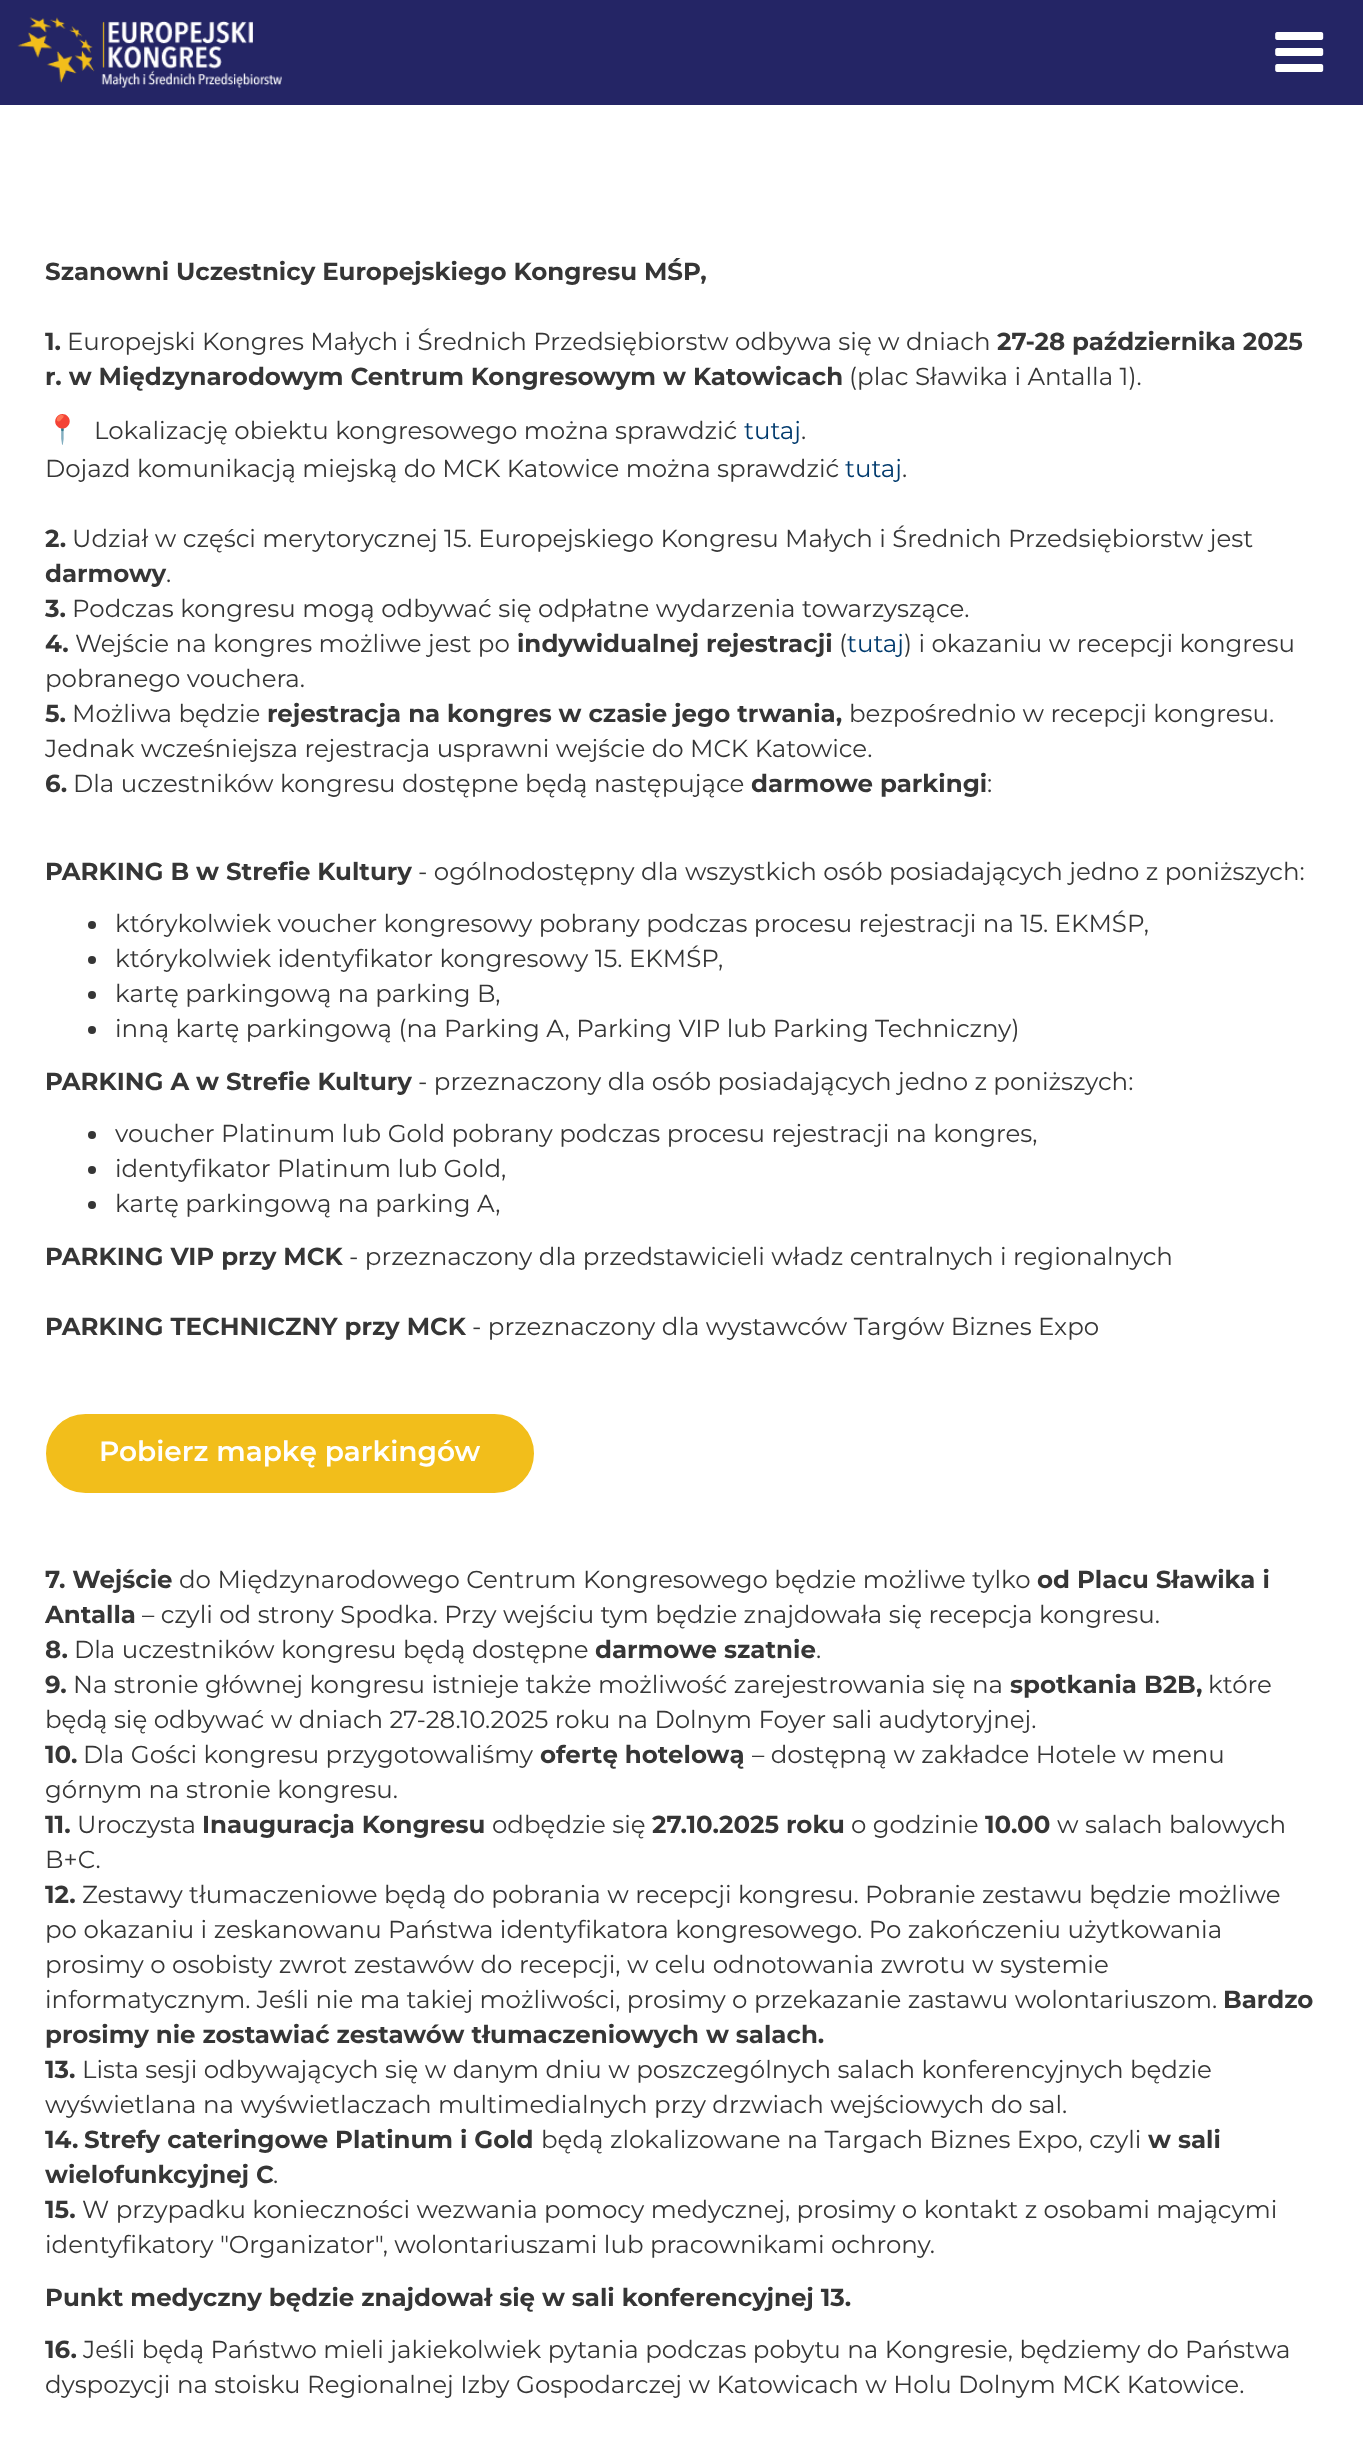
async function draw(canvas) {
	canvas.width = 1363;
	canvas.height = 2439;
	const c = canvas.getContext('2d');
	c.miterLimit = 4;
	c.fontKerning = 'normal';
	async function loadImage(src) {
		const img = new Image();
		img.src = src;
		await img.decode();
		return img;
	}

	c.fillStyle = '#fff';
	c.fillRect(0, 0, 1363, 2439);
	c.fillStyle = '#242565';
	c.fillRect(0, 0, 1363, 105);
	c.drawImage(await loadImage('img1.png'), 17, 17, 265, 71);
	c.drawImage(await loadImage('img2.png'), 1275, 32, 49, 40);
	c.font = 'bold 24.5px Montserrat';
	c.fillStyle = '#363636';
	c.fillText('Szanowni Uczestnicy Europejskiego Kongresu MŚP,', 45, 280);
	c.fillText('1.', 45, 350);
	c.font = '24.5px Montserrat';
	c.fillText('Europejski Kongres Małych i Średnich Przedsiębiorstw odbywa się w dniach', 67, 350);
	c.font = 'bold 24.5px Montserrat';
	c.fillText('27-28 października 2025', 997, 350);
	c.fillText('r. w Międzynarodowym Centrum Kongresowym w Katowicach', 45, 385);
	c.font = '24.5px Montserrat';
	c.fillText('(plac Sławika i Antalla 1).', 849, 385);
	c.font = '28px Noto Color Emoji';
	c.fillStyle = '#505050';
	c.fillText('📍', 45, 439);
	c.font = '24.5px Montserrat';
	c.fillStyle = '#363636';
	c.fillText('Lokalizację obiektu kongresowego można sprawdzić', 94, 439);
	c.fillStyle = '#003a6d';
	c.fillText('tutaj', 744, 439);
	c.fillStyle = '#363636';
	c.fillText('.', 801, 439);
	c.fillText('Dojazd komunikacją miejską do MCK Katowice można sprawdzić', 45, 477);
	c.fillStyle = '#003a6d';
	c.fillText('tutaj', 845, 477);
	c.fillStyle = '#363636';
	c.fillText('.', 902, 477);
	c.font = 'bold 24.5px Montserrat';
	c.fillText('2.', 45, 547);
	c.font = '24.5px Montserrat';
	c.fillText('Udział w części merytorycznej 15. Europejskiego Kongresu Małych i Średnich Przedsiębiorstw jest', 72, 547);
	c.font = 'bold 24.5px Montserrat';
	c.fillText('darmowy', 45, 582);
	c.font = '24.5px Montserrat';
	c.fillText('.', 166, 582);
	c.font = 'bold 24.5px Montserrat';
	c.fillText('3.', 45, 617);
	c.font = '24.5px Montserrat';
	c.fillText('Podczas kongresu mogą odbywać się odpłatne wydarzenia towarzyszące.', 72, 617);
	c.font = 'bold 24.5px Montserrat';
	c.fillText('4.', 45, 652);
	c.font = '24.5px Montserrat';
	c.fillText('Wejście na kongres możliwe jest po', 75, 652);
	c.font = 'bold 24.5px Montserrat';
	c.fillText('indywidualnej rejestracji', 517, 652);
	c.font = '24.5px Montserrat';
	c.fillText('(', 839, 652);
	c.fillStyle = '#003a6d';
	c.fillText('tutaj', 847, 652);
	c.fillStyle = '#363636';
	c.fillText(') i okazaniu w recepcji kongresu', 904, 652);
	c.fillText('pobranego vouchera.', 45, 687);
	c.font = 'bold 24.5px Montserrat';
	c.fillText('5.', 45, 722);
	c.font = '24.5px Montserrat';
	c.fillText('Możliwa będzie', 72, 722);
	c.font = 'bold 24.5px Montserrat';
	c.fillText('rejestracja na kongres w czasie jego trwania,', 267, 722);
	c.font = '24.5px Montserrat';
	c.fillText('bezpośrednio w recepcji kongresu.', 849, 722);
	c.fillText('Jednak wcześniejsza rejestracja usprawni wejście do MCK Katowice.', 45, 757);
	c.font = 'bold 24.5px Montserrat';
	c.fillText('6.', 45, 792);
	c.font = '24.5px Montserrat';
	c.fillText('Dla uczestników kongresu dostępne będą następujące', 73, 792);
	c.font = 'bold 24.5px Montserrat';
	c.fillText('darmowe parkingi', 751, 792);
	c.font = '24.5px Montserrat';
	c.fillText(':', 987, 792);
	c.font = 'bold 24.5px Montserrat';
	c.fillText('PARKING B w Strefie Kultury', 45, 880);
	c.font = '24.5px Montserrat';
	c.fillText('- ogólnodostępny dla wszystkich osób posiadających jedno z poniższych:', 418, 880);
	c.beginPath();
	c.arc(92, 925, 4, 0, 2 * Math.PI);
	c.fill();
	c.fillText('którykolwiek voucher kongresowy pobrany podczas procesu rejestracji na 15. EKMŚP,', 115, 932);
	c.beginPath();
	c.arc(92, 960, 4, 0, 2 * Math.PI);
	c.fill();
	c.fillText('którykolwiek identyfikator kongresowy 15. EKMŚP,', 115, 967);
	c.beginPath();
	c.arc(92, 995, 4, 0, 2 * Math.PI);
	c.fill();
	c.fillText('kartę parkingową na parking B,', 115, 1002);
	c.beginPath();
	c.arc(92, 1030, 4, 0, 2 * Math.PI);
	c.fill();
	c.fillText('inną kartę parkingową (na Parking A, Parking VIP lub Parking Techniczny)', 115, 1037);
	c.font = 'bold 24.5px Montserrat';
	c.fillText('PARKING A w Strefie Kultury', 45, 1090);
	c.font = '24.5px Montserrat';
	c.fillText('- przeznaczony dla osób posiadających jedno z poniższych:', 418, 1090);
	c.beginPath();
	c.arc(92, 1135, 4, 0, 2 * Math.PI);
	c.fill();
	c.fillText('voucher Platinum lub Gold pobrany podczas procesu rejestracji na kongres,', 115, 1142);
	c.beginPath();
	c.arc(92, 1170, 4, 0, 2 * Math.PI);
	c.fill();
	c.fillText('identyfikator Platinum lub Gold,', 115, 1177);
	c.beginPath();
	c.arc(92, 1205, 4, 0, 2 * Math.PI);
	c.fill();
	c.fillText('kartę parkingową na parking A,', 115, 1212);
	c.font = 'bold 24.5px Montserrat';
	c.fillText('PARKING VIP przy MCK', 45, 1265);
	c.font = '24.5px Montserrat';
	c.fillText('- przeznaczony dla przedstawicieli władz centralnych i regionalnych', 349, 1265);
	c.font = 'bold 24.5px Montserrat';
	c.fillText('PARKING TECHNICZNY przy MCK', 45, 1335);
	c.font = '24.5px Montserrat';
	c.fillText('- przeznaczony dla wystawców Targów Biznes Expo', 472, 1335);
	c.fillStyle = '#f2be1b';
	c.beginPath();
	c.roundRect(47, 1415, 486, 77, 38.5);
	c.fill();
	c.strokeStyle = '#f2be1b';
	c.lineWidth = 2;
	c.stroke();
	c.font = '600 28px Montserrat';
	c.fillStyle = '#fff';
	c.fillText('Pobierz mapkę parkingów', 99, 1461);
	c.font = 'bold 24.5px Montserrat';
	c.fillStyle = '#363636';
	c.fillText('7. Wejście', 45, 1588);
	c.font = '24.5px Montserrat';
	c.fillText('do Międzynarodowego Centrum Kongresowego będzie możliwe tylko', 179, 1588);
	c.font = 'bold 24.5px Montserrat';
	c.fillText('od Placu Sławika i', 1037, 1588);
	c.fillText('Antalla', 45, 1623);
	c.font = '24.5px Montserrat';
	c.fillText('– czyli od strony Spodka. Przy wejściu tym będzie znajdowała się recepcja kongresu.', 142, 1623);
	c.font = 'bold 24.5px Montserrat';
	c.fillText('8.', 45, 1658);
	c.font = '24.5px Montserrat';
	c.fillText('Dla uczestników kongresu będą dostępne', 74, 1658);
	c.font = 'bold 24.5px Montserrat';
	c.fillText('darmowe szatnie', 595, 1658);
	c.font = '24.5px Montserrat';
	c.fillText('.', 816, 1658);
	c.font = 'bold 24.5px Montserrat';
	c.fillText('9.', 45, 1693);
	c.font = '24.5px Montserrat';
	c.fillText('Na stronie głównej kongresu istnieje także możliwość zarejestrowania się na', 73, 1693);
	c.font = 'bold 24.5px Montserrat';
	c.fillText('spotkania B2B,', 1010, 1693);
	c.font = '24.5px Montserrat';
	c.fillText('które', 1208, 1693);
	c.fillText('będą się odbywać w dniach 27-28.10.2025 roku na Dolnym Foyer sali audytoryjnej.', 45, 1728);
	c.font = 'bold 24.5px Montserrat';
	c.fillText('10.', 45, 1763);
	c.font = '24.5px Montserrat';
	c.fillText('Dla Gości kongresu przygotowaliśmy', 83, 1763);
	c.font = 'bold 24.5px Montserrat';
	c.fillText('ofertę hotelową', 540, 1763);
	c.font = '24.5px Montserrat';
	c.fillText('– dostępną w zakładce Hotele w menu', 752, 1763);
	c.fillText('górnym na stronie kongresu.', 45, 1798);
	c.font = 'bold 24.5px Montserrat';
	c.fillText('11.', 45, 1833);
	c.font = '24.5px Montserrat';
	c.fillText('Uroczysta', 77, 1833);
	c.font = 'bold 24.5px Montserrat';
	c.fillText('Inauguracja Kongresu', 202, 1833);
	c.font = '24.5px Montserrat';
	c.fillText('odbędzie się', 492, 1833);
	c.font = 'bold 24.5px Montserrat';
	c.fillText('27.10.2025 roku', 652, 1833);
	c.font = '24.5px Montserrat';
	c.fillText('o godzinie', 851, 1833);
	c.font = 'bold 24.5px Montserrat';
	c.fillText('10.00', 985, 1833);
	c.font = '24.5px Montserrat';
	c.fillText('w salach balowych', 1057, 1833);
	c.fillText('B+C.', 45, 1868);
	c.font = 'bold 24.5px Montserrat';
	c.fillText('12.', 45, 1903);
	c.font = '24.5px Montserrat';
	for (const [text, x, y] of [
		['Zestawy tłumaczeniowe będą do pobrania w recepcji kongresu. Pobranie zestawu będzie możliwe', 82, 1903],
		['po okazaniu i zeskanowanu Państwa identyfikatora kongresowego. Po zakończeniu użytkowania', 45, 1938],
		['prosimy o osobisty zwrot zestawów do recepcji, w celu odnotowania zwrotu w systemie', 45, 1973],
		['informatycznym. Jeśli nie ma takiej możliwości, prosimy o przekazanie zastawu wolontariuszom.', 45, 2008],
	]) {
		c.fillText(text, x, y);
	}
	c.font = 'bold 24.5px Montserrat';
	for (const [text, x, y] of [
		['Bardzo', 1223, 2008],
		['prosimy nie zostawiać zestawów tłumaczeniowych w salach.', 45, 2043],
		['13.', 45, 2078],
	]) {
		c.fillText(text, x, y);
	}
	c.font = '24.5px Montserrat';
	c.fillText('Lista sesji odbywających się w danym dniu w poszczególnych salach konferencyjnych będzie', 82, 2078);
	c.fillText('wyświetlana na wyświetlaczach multimedialnych przy drzwiach wejściowych do sal.', 45, 2113);
	c.font = 'bold 24.5px Montserrat';
	c.fillText('14.', 45, 2148);
	c.fillText('Strefy cateringowe Platinum i Gold', 84, 2148);
	c.font = '24.5px Montserrat';
	c.fillText('będą zlokalizowane na Targach Biznes Expo, czyli', 541, 2148);
	c.font = 'bold 24.5px Montserrat';
	c.fillText('w sali', 1148, 2148);
	c.fillText('wielofunkcyjnej C', 45, 2183);
	c.font = '24.5px Montserrat';
	c.fillText('.', 273, 2183);
	c.font = 'bold 24.5px Montserrat';
	c.fillText('15.', 45, 2218);
	c.font = '24.5px Montserrat';
	c.fillText('W przypadku konieczności wezwania pomocy medycznej, prosimy o kontakt z osobami mającymi', 82, 2218);
	c.fillText('identyfikatory "Organizator", wolontariuszami lub pracownikami ochrony.', 45, 2253);
	c.font = 'bold 24.5px Montserrat';
	c.fillText('Punkt medyczny będzie znajdował się w sali konferencyjnej 13.', 45, 2306);
	c.fillText('16.', 45, 2358);
	c.font = '24.5px Montserrat';
	c.fillText('Jeśli będą Państwo mieli jakiekolwiek pytania podczas pobytu na Kongresie, będziemy do Państwa', 83, 2358);
	c.fillText('dyspozycji na stoisku Regionalnej Izby Gospodarczej w Katowicach w Holu Dolnym MCK Katowice.', 45, 2393);
}

draw(document.querySelector('canvas'));
